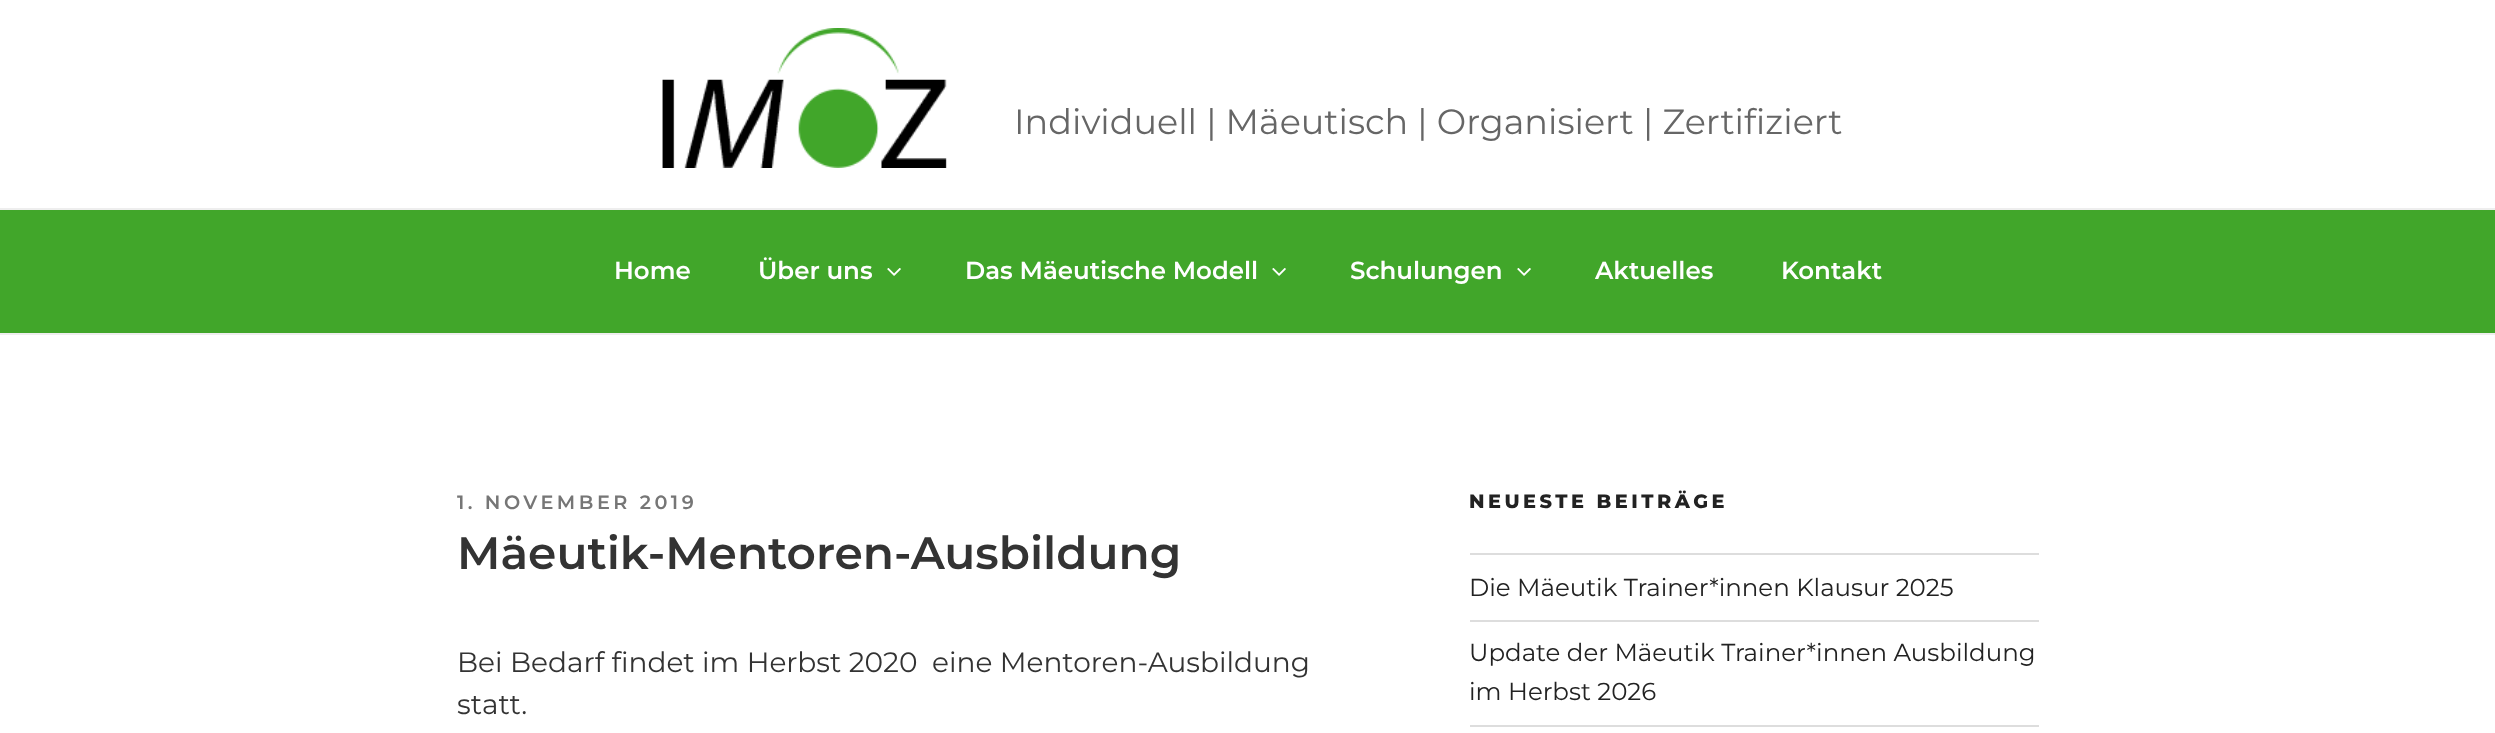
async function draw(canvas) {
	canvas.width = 2495;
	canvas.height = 733;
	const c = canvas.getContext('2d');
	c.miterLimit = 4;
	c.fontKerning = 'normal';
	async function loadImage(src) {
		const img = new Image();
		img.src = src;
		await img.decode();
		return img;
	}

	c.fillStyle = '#fff';
	c.fillRect(0, 0, 2495, 733);
	c.drawImage(await loadImage('img1.png'), 662, 28, 285, 140);
	c.font = '35px Montserrat';
	c.fillStyle = '#666';
	c.fillText('Individuell | Mäeutisch | Organisiert | Zertifiziert', 1014, 134);
	for (const [x, y, w, h, color] of [
		[0, 210, 2495, 123, '#41a62a'],
		[0, 208, 2495, 2, '#eee'],
		[0, 333, 2495, 2, '#eee'],
	]) {
		c.fillStyle = color;
		c.fillRect(x, y, w, h);
	}
	c.font = '600 24.5px Montserrat';
	c.fillStyle = '#fff';
	c.fillText('Home', 614, 279);
	c.fillText('Über uns', 758, 279);
	c.drawImage(await loadImage('img2.png'), 887, 268, 14, 8);
	c.fillText('Das Mäeutische Modell', 965, 279);
	c.drawImage(await loadImage('img2.png'), 1272, 268, 14, 8);
	c.fillText('Schulungen', 1350, 279);
	c.drawImage(await loadImage('img2.png'), 1517, 268, 14, 8);
	c.fillText('Aktuelles', 1595, 279);
	c.fillText('Kontakt', 1781, 279);
	c.letterSpacing = '3.5px';
	c.font = '600 19.25px Montserrat';
	c.fillStyle = '#767676';
	c.fillText('1. NOVEMBER 2019', 457, 509);
	c.letterSpacing = '0px';
	c.font = '600 45.5px Montserrat';
	c.fillStyle = '#333';
	c.fillText('Mäeutik-Mentoren-Ausbildung', 457, 569);
	c.font = '28px Montserrat';
	c.fillText('Bei Bedarf findet im Herbst 2020  eine Mentoren-Ausbildung', 457, 672);
	c.fillText('statt.', 457, 714);
	c.letterSpacing = '3.5px';
	c.font = '800 19.25px Montserrat';
	c.fillStyle = '#222';
	c.fillText('NEUESTE BEITRÄGE', 1469, 508);
	c.fillStyle = '#ddd';
	c.fillRect(1470, 553, 569, 2);
	c.fillRect(1470, 620, 569, 2);
	c.letterSpacing = '0px';
	c.font = '24.5px Montserrat';
	c.fillStyle = '#222';
	c.fillText('Die Mäeutik Trainer*innen Klausur 2025', 1469, 596);
	c.fillStyle = '#ddd';
	c.fillRect(1470, 725, 569, 2);
	c.fillStyle = '#222';
	c.fillText('Update der Mäeutik Trainer*innen Ausbildung', 1469, 661);
	c.fillText('im Herbst 2026', 1469, 700);
}

draw(document.querySelector('canvas'));
